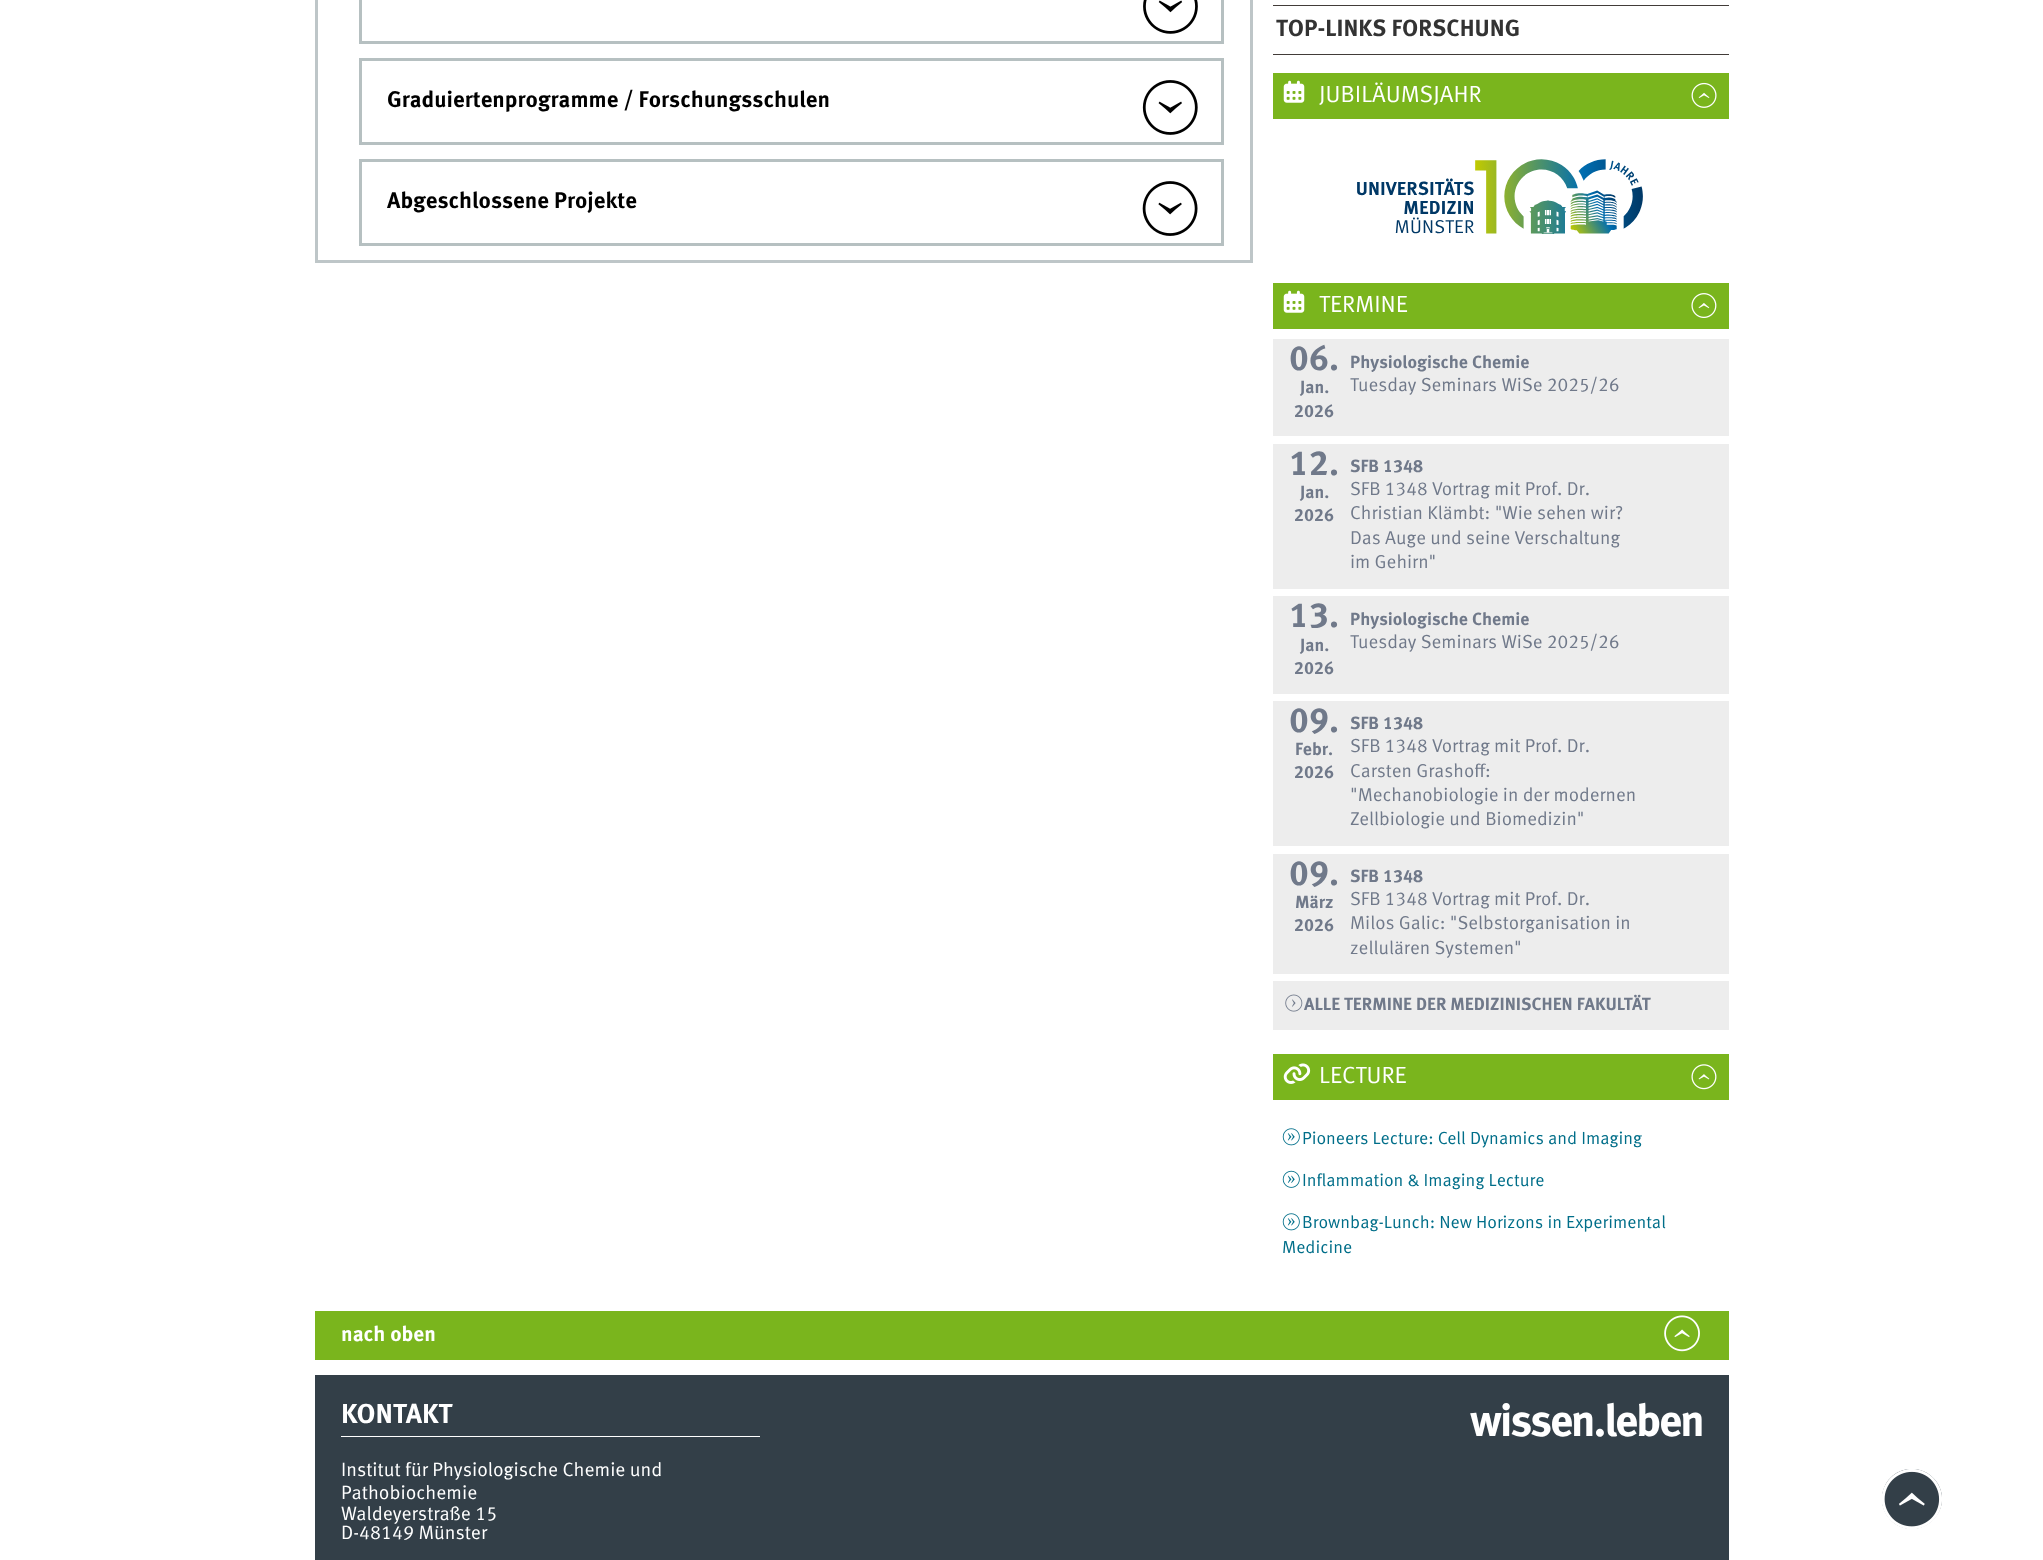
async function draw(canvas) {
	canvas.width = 2043;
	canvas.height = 1560;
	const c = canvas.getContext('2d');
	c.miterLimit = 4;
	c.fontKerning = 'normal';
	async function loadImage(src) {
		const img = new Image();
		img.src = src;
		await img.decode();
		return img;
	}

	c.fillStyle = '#fff';
	c.fillRect(0, 0, 2043, 1560);
	c.fillStyle = '#423c39';
	c.fillRect(1273, 5, 456, 1);
	c.fillRect(1273, 54, 456, 1);
	c.font = 'bold 23.5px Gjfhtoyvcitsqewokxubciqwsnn';
	c.fillStyle = '#333';
	c.fillText('TOP-LINKS FORSCHUNG', 1276, 36);
	c.strokeStyle = '#bec6c8';
	c.lineWidth = 3;
	c.strokeRect(316.5, -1.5, 935, 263);
	c.strokeStyle = '#b6c0c1';
	c.strokeRect(360.5, -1.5, 862, 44);
	c.drawImage(await loadImage('img1.png'), 1143, 0, 55, 34);
	c.strokeRect(360.5, 59.5, 862, 84);
	c.font = 'bold 22.6px Gjfhtoyvcitsqewokxubciqwsnn';
	c.fillStyle = '#000';
	c.fillText('Graduiertenprogramme / Forschungsschulen', 387, 107);
	c.drawImage(await loadImage('img2.png'), 1142, 80, 56, 55);
	c.strokeRect(360.5, 160.5, 862, 84);
	c.fillText('Abgeschlossene Projekte', 387, 208);
	c.drawImage(await loadImage('img3.png'), 1142, 181, 56, 55);
	c.fillStyle = '#333f48';
	c.beginPath();
	c.moveTo(1882, 1499);
	c.bezierCurveTo(1882, 1482, 1895, 1469, 1912, 1469);
	c.bezierCurveTo(1928, 1469, 1942, 1482, 1942, 1499);
	c.bezierCurveTo(1942, 1515, 1928, 1529, 1912, 1529);
	c.bezierCurveTo(1895, 1529, 1882, 1515, 1882, 1499);
	c.closePath();
	c.fill();
	c.drawImage(await loadImage('img4.png'), 1882, 1469, 60, 60);
	c.fillStyle = '#7ab51d';
	c.fillRect(1273, 73, 456, 46);
	c.drawImage(await loadImage('img5.png'), 1283, 80, 22, 23);
	c.font = '23.5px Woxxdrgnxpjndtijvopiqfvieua';
	c.fillStyle = '#fff';
	c.fillText('JUBILÄUMSJAHR', 1319, 102);
	c.drawImage(await loadImage('img6.png'), 1691, 82, 26, 26);
	c.drawImage(await loadImage('img7.png'), 1357, 159, 286, 75);
	c.fillStyle = '#7ab51d';
	c.fillRect(1273, 283, 456, 46);
	c.drawImage(await loadImage('img5.png'), 1283, 290, 22, 23);
	c.fillStyle = '#fff';
	c.fillText('TERMINE', 1319, 312);
	c.drawImage(await loadImage('img8.png'), 1691, 293, 26, 25);
	c.fillStyle = '#ededed';
	c.fillRect(1273, 339, 456, 97);
	c.font = 'bold 35px Gjfhtoyvcitsqewokxubciqwsnn';
	c.fillStyle = '#70798a';
	c.fillText('06.', 1289, 370);
	c.font = 'bold 17.6px Gjfhtoyvcitsqewokxubciqwsnn';
	for (const [text, x, y] of [
		['Jan.', 1300, 393],
		['2026', 1294, 417],
		['Physiologische Chemie', 1350, 368],
	]) {
		c.fillText(text, x, y);
	}
	c.font = '18.75px Woxxdrgnxpjndtijvopiqfvieua';
	c.fillText('Tuesday Seminars WiSe 2025/26', 1350, 391);
	c.fillStyle = '#ededed';
	c.fillRect(1273, 444, 456, 145);
	c.font = 'bold 35px Gjfhtoyvcitsqewokxubciqwsnn';
	c.fillStyle = '#70798a';
	c.fillText('12.', 1289, 475);
	c.font = 'bold 17.6px Gjfhtoyvcitsqewokxubciqwsnn';
	for (const [text, x, y] of [
		['Jan.', 1300, 498],
		['2026', 1294, 521],
		['SFB 1348', 1350, 472],
	]) {
		c.fillText(text, x, y);
	}
	c.font = '18.75px Woxxdrgnxpjndtijvopiqfvieua';
	for (const [text, x, y] of [
		['SFB 1348 Vortrag mit Prof. Dr.', 1350, 495],
		['Christian Klämbt: "Wie sehen wir?', 1350, 519],
		['Das Auge und seine Verschaltung', 1350, 544],
		['im Gehirn"', 1350, 568],
	]) {
		c.fillText(text, x, y);
	}
	c.fillStyle = '#ededed';
	c.fillRect(1273, 596, 456, 98);
	c.font = 'bold 35px Gjfhtoyvcitsqewokxubciqwsnn';
	c.fillStyle = '#70798a';
	c.fillText('13.', 1289, 627);
	c.font = 'bold 17.6px Gjfhtoyvcitsqewokxubciqwsnn';
	for (const [text, x, y] of [
		['Jan.', 1300, 651],
		['2026', 1294, 674],
		['Physiologische Chemie', 1350, 625],
	]) {
		c.fillText(text, x, y);
	}
	c.font = '18.75px Woxxdrgnxpjndtijvopiqfvieua';
	c.fillText('Tuesday Seminars WiSe 2025/26', 1350, 648);
	c.fillStyle = '#ededed';
	c.fillRect(1273, 701, 456, 145);
	c.font = 'bold 35px Gjfhtoyvcitsqewokxubciqwsnn';
	c.fillStyle = '#70798a';
	c.fillText('09.', 1289, 732);
	c.font = 'bold 17.6px Gjfhtoyvcitsqewokxubciqwsnn';
	for (const [text, x, y] of [
		['Febr.', 1295, 755],
		['2026', 1294, 778],
		['SFB 1348', 1350, 729],
	]) {
		c.fillText(text, x, y);
	}
	c.font = '18.75px Woxxdrgnxpjndtijvopiqfvieua';
	for (const [text, x, y] of [
		['SFB 1348 Vortrag mit Prof. Dr.', 1350, 752],
		['Carsten Grashoff:', 1350, 777],
		['"Mechanobiologie in der modernen', 1350, 801],
		['Zellbiologie und Biomedizin"', 1350, 825],
	]) {
		c.fillText(text, x, y);
	}
	c.fillStyle = '#ededed';
	c.fillRect(1273, 854, 456, 120);
	c.font = 'bold 35px Gjfhtoyvcitsqewokxubciqwsnn';
	c.fillStyle = '#70798a';
	c.fillText('09.', 1289, 885);
	c.font = 'bold 17.6px Gjfhtoyvcitsqewokxubciqwsnn';
	for (const [text, x, y] of [
		['März', 1295, 908],
		['2026', 1294, 931],
		['SFB 1348', 1350, 882],
	]) {
		c.fillText(text, x, y);
	}
	c.font = '18.75px Woxxdrgnxpjndtijvopiqfvieua';
	for (const [text, x, y] of [
		['SFB 1348 Vortrag mit Prof. Dr.', 1350, 905],
		['Milos Galic: "Selbstorganisation in', 1350, 929],
		['zellulären Systemen"', 1350, 954],
	]) {
		c.fillText(text, x, y);
	}
	c.fillStyle = '#ededed';
	c.fillRect(1273, 981, 456, 49);
	c.drawImage(await loadImage('img9.png'), 1285, 994, 18, 18);
	c.font = 'bold 17.6px Gjfhtoyvcitsqewokxubciqwsnn';
	c.fillStyle = '#70798a';
	c.fillText('ALLE TERMINE DER MEDIZINISCHEN FAKULTÄT', 1304, 1010);
	c.fillStyle = '#7ab51d';
	c.fillRect(1273, 1054, 456, 46);
	c.drawImage(await loadImage('img10.png'), 1283, 1063, 28, 21);
	c.font = '23.5px Woxxdrgnxpjndtijvopiqfvieua';
	c.fillStyle = '#fff';
	c.fillText('LECTURE', 1319, 1083);
	c.drawImage(await loadImage('img11.png'), 1691, 1064, 26, 26);
	c.drawImage(await loadImage('img12.png'), 1282, 1128, 18, 18);
	c.font = '17.6px Woxxdrgnxpjndtijvopiqfvieua';
	c.fillStyle = '#006e89';
	c.fillText('Pioneers Lecture: Cell Dynamics and Imaging', 1302, 1144);
	c.drawImage(await loadImage('img13.png'), 1282, 1170, 18, 18);
	c.fillText('Inflammation & Imaging Lecture', 1302, 1186);
	c.drawImage(await loadImage('img12.png'), 1282, 1213, 18, 18);
	c.fillText('Brownbag-Lunch: New Horizons in Experimental', 1302, 1228);
	c.fillText('Medicine', 1282, 1253);
	c.fillStyle = '#7ab51d';
	c.fillRect(315, 1311, 1414, 49);
	c.font = 'bold 21px Gjfhtoyvcitsqewokxubciqwsnn';
	c.fillStyle = '#fff';
	c.fillText('nach oben', 341, 1341);
	c.drawImage(await loadImage('img14.png'), 1664, 1315, 36, 37);
	c.fillStyle = '#333f48';
	c.fillRect(315, 1375, 1414, 185);
	c.fillStyle = '#fff';
	c.fillRect(341, 1436, 419, 1);
	c.font = 'bold 27.5px Gjfhtoyvcitsqewokxubciqwsnn';
	c.fillText('KONTAKT', 341, 1423);
	c.font = '19.3px Woxxdrgnxpjndtijvopiqfvieua';
	for (const [text, x, y] of [
		['Institut für Physiologische Chemie und', 341, 1476],
		['Pathobiochemie', 341, 1499],
		['Waldeyerstraße 15', 341, 1520],
		['D-48149 Münster', 341, 1539],
	]) {
		c.fillText(text, x, y);
	}
	c.letterSpacing = '-2.25px';
	c.font = 'bold 45px Gjfhtoyvcitsqewokxubciqwsnn';
	c.fillText('wissen.leben', 1470, 1436);
}

draw(document.querySelector('canvas'));
